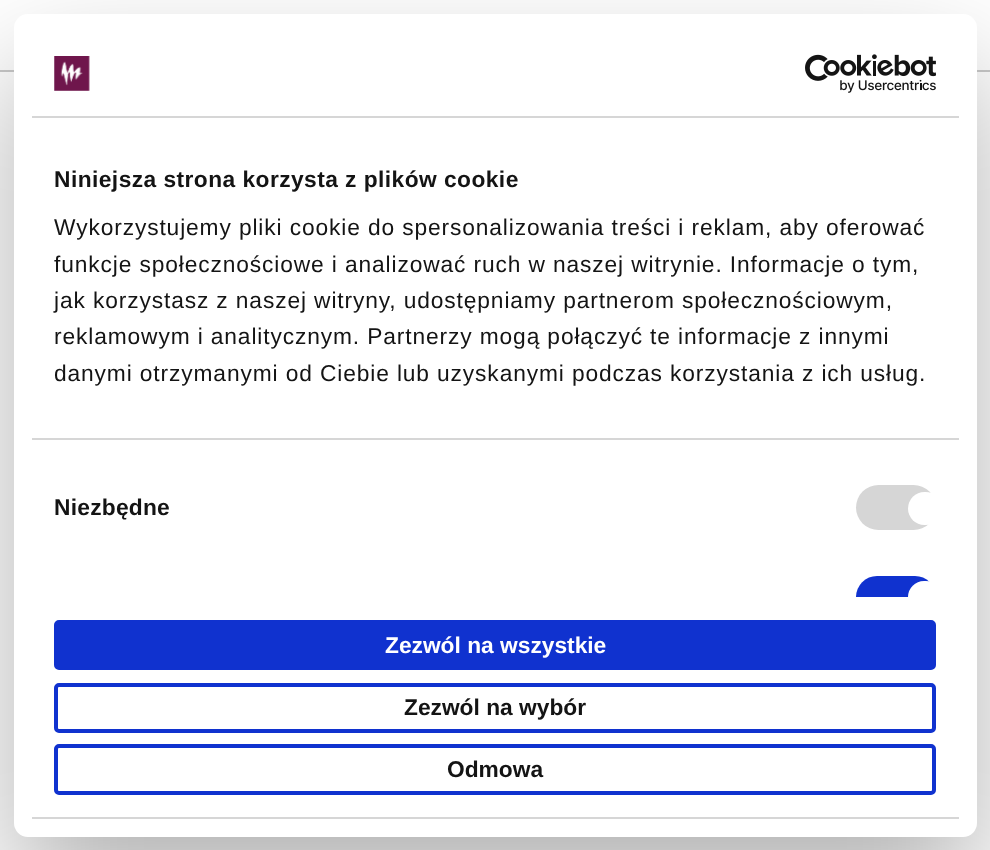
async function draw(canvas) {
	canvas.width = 990;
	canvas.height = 850;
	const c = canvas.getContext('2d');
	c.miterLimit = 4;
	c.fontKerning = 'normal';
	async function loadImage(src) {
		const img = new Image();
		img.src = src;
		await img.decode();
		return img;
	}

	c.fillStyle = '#fff';
	c.fillRect(0, 0, 990, 850);
	c.fillStyle = '#cacaca';
	c.fillRect(0, 70, 990, 2);
	c.fillStyle = '#0000004d';
	c.filter = 'blur(59.5px)';
	c.beginPath();
	c.roundRect(14, 70, 963, 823, 14);
	c.fill();
	c.filter = 'none';
	c.fillStyle = '#fff';
	c.beginPath();
	c.roundRect(14, 14, 963, 823, 14);
	c.fill();
	c.fillStyle = '#d6d6d6';
	c.fillRect(32, 116, 927, 2);
	c.drawImage(await loadImage('img1.png'), 54, 56, 36, 35);
	c.drawImage(await loadImage('img2.png'), 805, 54, 131, 39);
	c.fillRect(32, 438, 927, 2);
	c.letterSpacing = '0.45px';
	c.font = 'bold 22.75px Liberation Sans';
	c.fillStyle = '#141414';
	c.fillText('Niniejsza strona korzysta z plików cookie', 54, 187);
	c.letterSpacing = '0.88px';
	c.font = '22.75px Liberation Sans';
	for (const [text, x, y] of [
		['Wykorzystujemy pliki cookie do spersonalizowania treści i reklam, aby oferować', 54, 235],
		['funkcje społecznościowe i analizować ruch w naszej witrynie. Informacje o tym,', 54, 272],
		['jak korzystasz z naszej witryny, udostępniamy partnerom społecznościowym,', 54, 308],
		['reklamowym i analitycznym. Partnerzy mogą połączyć te informacje z innymi', 54, 344],
		['danymi otrzymanymi od Ciebie lub uzyskanymi podczas korzystania z ich usług.', 54, 381],
	]) {
		c.fillText(text, x, y);
	}
	c.letterSpacing = '0.25px';
	c.font = 'bold 22.75px Liberation Sans';
	c.fillText('Niezbędne', 54, 515);
	c.fillStyle = '#d6d6d6';
	c.beginPath();
	c.roundRect(856, 485, 80, 45, 22.5);
	c.fill();
	c.fillStyle = '#fff';
	c.beginPath();
	c.roundRect(908, 492, 34, 33, 16.5);
	c.fill();
	c.fillStyle = '#1032cf';
	c.beginPath();
	c.roundRect(856, 576, 80, 21, [22.5, 22.5, 0, 0]);
	c.fill();
	c.fillStyle = '#fff';
	c.beginPath();
	c.roundRect(908, 581, 34, 16, [16.5, 16.5, 0, 0]);
	c.fill();
	c.fillStyle = '#d6d6d6';
	c.fillRect(32, 817, 927, 2);
	c.fillStyle = '#1032cf';
	c.beginPath();
	c.roundRect(56, 622, 878, 46, 3);
	c.fill();
	c.strokeStyle = '#1032cf';
	c.lineWidth = 4;
	c.stroke();
	c.letterSpacing = '0px';
	c.fillStyle = '#fff';
	c.fillText('Zezwól na wszystkie', 385, 653);
	c.beginPath();
	c.roundRect(56, 685, 878, 46, 3);
	c.stroke();
	c.fillStyle = '#141414';
	c.fillText('Zezwól na wybór', 404, 715);
	c.beginPath();
	c.roundRect(56, 746, 878, 47, 3);
	c.stroke();
	c.fillText('Odmowa', 447, 777);
}

draw(document.querySelector('canvas'));
